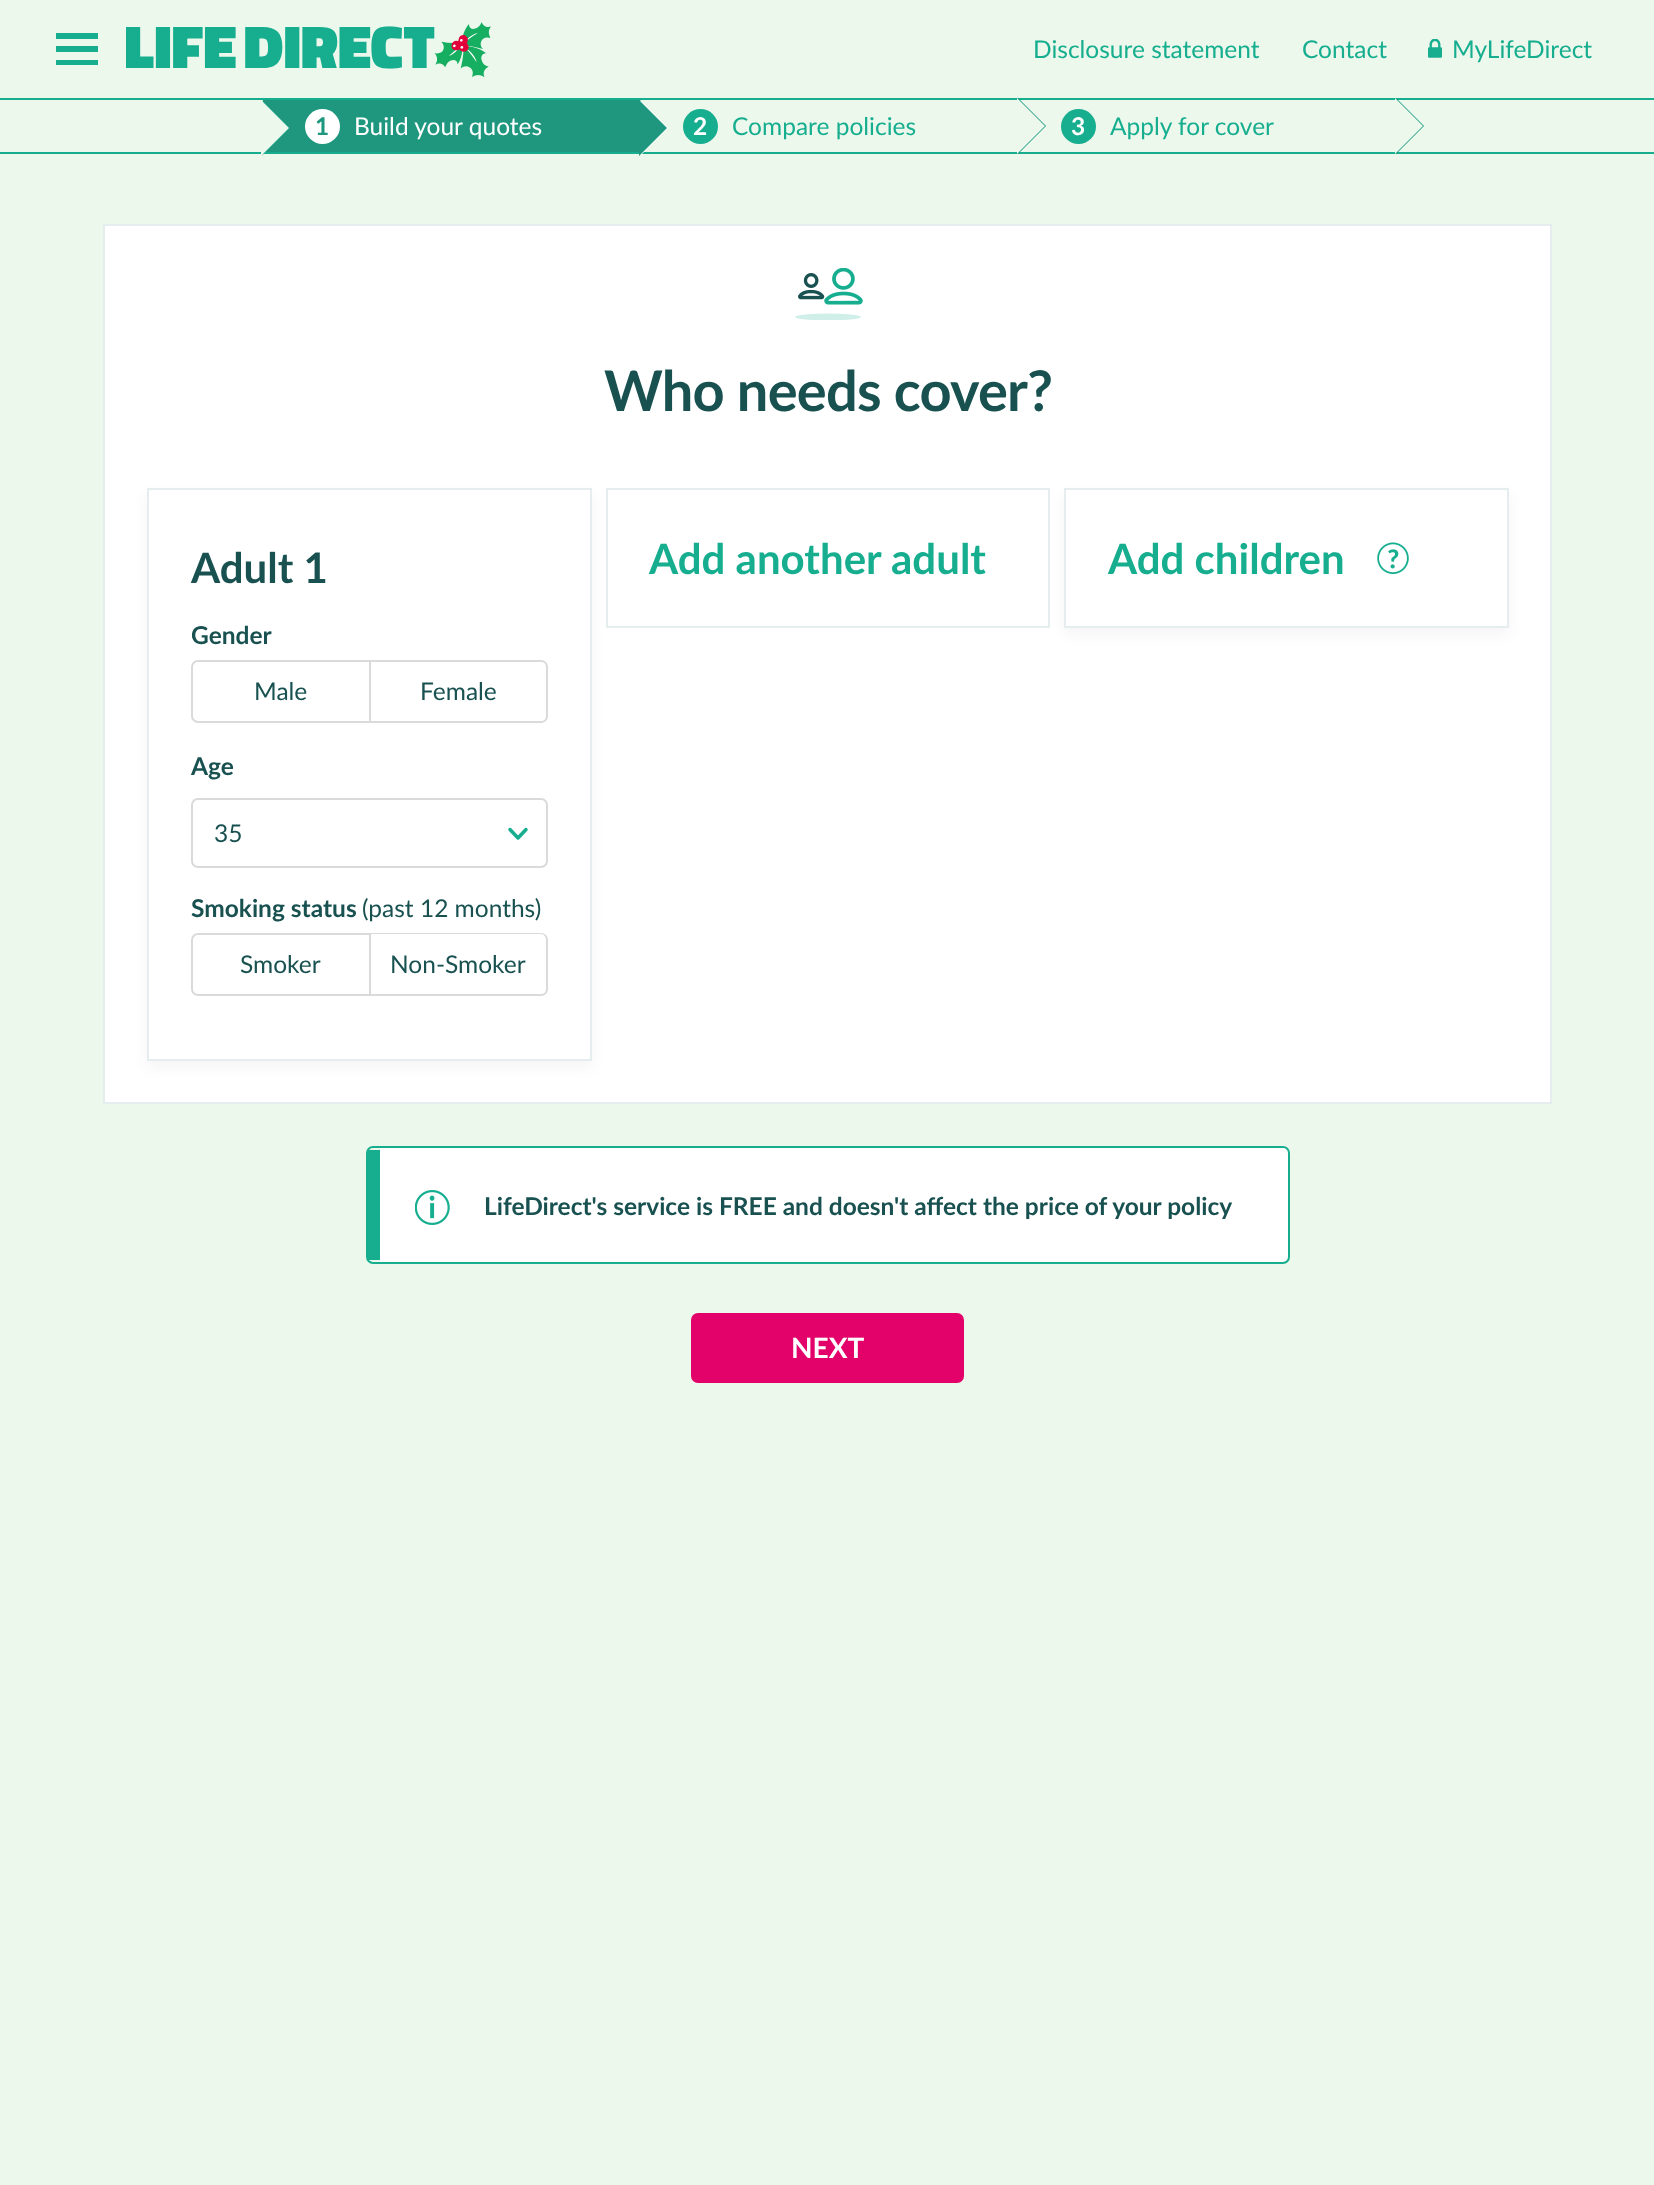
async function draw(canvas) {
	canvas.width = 1654;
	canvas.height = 2185;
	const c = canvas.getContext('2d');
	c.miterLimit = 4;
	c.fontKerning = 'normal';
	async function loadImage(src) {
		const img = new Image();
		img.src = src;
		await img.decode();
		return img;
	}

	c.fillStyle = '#ecf8ec';
	c.fillRect(0, 0, 1654, 2185);
	for (const [x, y, w, h, color] of [
		[56, 33, 42, 6, '#16ae8f'],
		[56, 46, 42, 6, '#16ae8f'],
		[56, 60, 42, 5, '#16ae8f'],
	]) {
		c.fillStyle = color;
		c.fillRect(x, y, w, h);
	}
	c.drawImage(await loadImage('img1.png'), 126, 22, 366, 56);
	c.font = '24.5px Lato';
	c.fillText('Disclosure statement', 1033, 58);
	c.fillText('Contact', 1302, 58);
	c.drawImage(await loadImage('img2.png'), 1428, 39, 14, 19);
	c.fillText('MyLifeDirect', 1452, 58);
	for (const [x, y, w, h, color] of [
		[0, 98, 1654, 2, '#17ae8f'],
		[0, 152, 1654, 2, '#17ae8f'],
		[263, 100, 378, 52, '#1e977e'],
	]) {
		c.fillStyle = color;
		c.fillRect(x, y, w, h);
	}
	c.fillStyle = '#16ae8f66';
	c.beginPath();
	c.moveTo(262, 156);
	c.lineTo(262, 100);
	c.lineTo(290, 128);
	c.closePath();
	c.fill();
	c.fillStyle = '#ecf8ec';
	c.beginPath();
	c.moveTo(261, 156);
	c.lineTo(261, 100);
	c.lineTo(289, 128);
	c.closePath();
	c.fill();
	c.fillStyle = '#fff';
	c.beginPath();
	c.moveTo(640, 156);
	c.lineTo(640, 100);
	c.lineTo(668, 128);
	c.closePath();
	c.fill();
	c.fillStyle = '#1e977e';
	c.beginPath();
	c.moveTo(639, 156);
	c.lineTo(639, 100);
	c.lineTo(667, 128);
	c.closePath();
	c.fill();
	c.fillStyle = '#fff';
	c.beginPath();
	c.arc(322.5, 126.5, 17.5, 0, 2 * Math.PI);
	c.fill();
	c.font = 'bold 24.5px Lato';
	c.fillStyle = '#1e977e';
	c.fillText('1', 315, 135);
	c.font = '24.5px Lato';
	c.fillStyle = '#fff';
	c.fillText('Build your quotes', 354, 135);
	c.fillStyle = '#079276';
	c.beginPath();
	c.moveTo(1018, 154);
	c.lineTo(1018, 98);
	c.lineTo(1046, 126);
	c.closePath();
	c.fill();
	c.fillStyle = '#ecf8ec';
	c.beginPath();
	c.moveTo(1017, 154);
	c.lineTo(1017, 98);
	c.lineTo(1045, 126);
	c.closePath();
	c.fill();
	c.fillStyle = '#16ae8f';
	c.beginPath();
	c.arc(700.5, 126.5, 17.5, 0, 2 * Math.PI);
	c.fill();
	c.font = 'bold 24.5px Lato';
	c.fillStyle = '#fff';
	c.fillText('2', 693, 135);
	c.font = '24.5px Lato';
	c.fillStyle = '#16ae8f';
	c.fillText('Compare policies', 732, 135);
	c.fillStyle = '#079276';
	c.beginPath();
	c.moveTo(1396, 154);
	c.lineTo(1396, 98);
	c.lineTo(1424, 126);
	c.closePath();
	c.fill();
	c.fillStyle = '#ecf8ec';
	c.beginPath();
	c.moveTo(1395, 154);
	c.lineTo(1395, 98);
	c.lineTo(1423, 126);
	c.closePath();
	c.fill();
	c.fillStyle = '#16ae8f';
	c.beginPath();
	c.arc(1078.5, 126.5, 17.5, 0, 2 * Math.PI);
	c.fill();
	c.font = 'bold 24.5px Lato';
	c.fillStyle = '#fff';
	c.fillText('3', 1071, 135);
	c.font = '24.5px Lato';
	c.fillStyle = '#16ae8f';
	c.fillText('Apply for cover', 1110, 135);
	c.fillStyle = '#fff';
	c.beginPath();
	c.rect(104, 225, 1447, 878);
	c.fill();
	c.strokeStyle = '#e6edee';
	c.lineWidth = 2;
	c.stroke();
	c.drawImage(await loadImage('img3.png'), 795, 268, 68, 52);
	c.letterSpacing = '-0.75px';
	c.font = 'bold 56px Lato';
	c.fillStyle = '#195151';
	c.fillText('Who needs cover?', 604, 411);
	c.fillStyle = '#0000000a';
	c.filter = 'blur(7px)';
	c.beginPath();
	c.rect(147, 495, 445, 573);
	c.fill();
	c.filter = 'none';
	c.fillStyle = '#fff';
	c.beginPath();
	c.rect(148, 489, 443, 571);
	c.fill();
	c.stroke();
	c.letterSpacing = '0px';
	c.font = 'bold 42px Lato';
	c.fillStyle = '#195151';
	c.fillText('Adult 1', 191, 583);
	c.font = 'bold 24.5px Lato';
	c.fillText('Gender', 191, 644);
	c.beginPath();
	c.roundRect(192, 661, 178, 61, [6, 0, 0, 6]);
	c.strokeStyle = '#dadada';
	c.stroke();
	c.font = '24.5px Lato';
	c.fillText('Male', 254, 700);
	c.fillStyle = '#dadada';
	c.beginPath();
	c.moveTo(371, 660);
	c.lineTo(541, 660);
	c.bezierCurveTo(545, 660, 548, 663, 548, 667);
	c.lineTo(548, 716);
	c.bezierCurveTo(548, 720, 545, 723, 541, 723);
	c.lineTo(371, 723);
	c.closePath();
	c.moveTo(371, 662);
	c.lineTo(541, 662);
	c.bezierCurveTo(544, 662, 546, 664, 546, 667);
	c.lineTo(546, 716);
	c.bezierCurveTo(546, 719, 544, 721, 541, 721);
	c.lineTo(371, 721);
	c.closePath();
	c.fill('evenodd');
	c.fillStyle = '#195151';
	c.fillText('Female', 420, 700);
	c.font = 'bold 24.5px Lato';
	c.fillText('Age', 191, 775);
	c.beginPath();
	c.moveTo(526, 829.5);
	c.lineTo(518, 838);
	c.lineTo(510, 829.5);
	c.strokeStyle = '#16ae8f';
	c.lineWidth = 3.5;
	c.lineCap = 'round';
	c.lineJoin = 'round';
	c.stroke();
	c.beginPath();
	c.roundRect(192, 799, 355, 68, 6);
	c.strokeStyle = '#dadada';
	c.lineWidth = 2;
	c.lineJoin = 'miter';
	c.stroke();
	c.font = '24.5px Lato';
	c.fillText('35', 214, 842);
	c.font = 'bold 24.5px Lato';
	c.fillText('Smoking status', 191, 917);
	c.font = '24.5px Lato';
	c.fillText('(past 12 months)', 362, 917);
	c.beginPath();
	c.roundRect(192, 934, 178, 61, [6, 0, 0, 6]);
	c.stroke();
	c.fillText('Smoker', 240, 973);
	c.fillStyle = '#dadada';
	c.beginPath();
	c.moveTo(371, 933);
	c.lineTo(541, 933);
	c.bezierCurveTo(545, 933, 548, 936, 548, 940);
	c.lineTo(548, 989);
	c.bezierCurveTo(548, 993, 545, 996, 541, 996);
	c.lineTo(371, 996);
	c.closePath();
	c.moveTo(371, 934);
	c.lineTo(541, 934);
	c.bezierCurveTo(544, 934, 546, 937, 546, 940);
	c.lineTo(546, 989);
	c.bezierCurveTo(546, 992, 544, 994, 541, 994);
	c.lineTo(371, 994);
	c.closePath();
	c.fill('evenodd');
	c.fillStyle = '#195151';
	c.fillText('Non-Smoker', 390, 973);
	c.strokeStyle = '#e6edee';
	c.strokeRect(607, 489, 442, 138);
	c.font = 'bold 42px Lato';
	c.fillStyle = '#16ae8f';
	c.fillText('Add another adult', 649, 574);
	c.fillStyle = '#0000000a';
	c.filter = 'blur(7px)';
	c.beginPath();
	c.rect(1064, 495, 445, 140);
	c.fill();
	c.filter = 'none';
	c.fillStyle = '#fff';
	c.beginPath();
	c.rect(1065, 489, 443, 138);
	c.fill();
	c.stroke();
	c.fillStyle = '#16ae8f';
	c.fillText('Add children', 1108, 574);
	c.drawImage(await loadImage('img4.png'), 1377, 542, 32, 32);
	c.fillStyle = '#fff';
	c.beginPath();
	c.moveTo(380, 1148);
	c.lineTo(1283, 1148);
	c.bezierCurveTo(1286, 1148, 1288, 1150, 1288, 1153);
	c.lineTo(1288, 1256);
	c.bezierCurveTo(1288, 1259, 1286, 1262, 1283, 1262);
	c.lineTo(380, 1262);
	c.closePath();
	c.fill();
	c.beginPath();
	c.roundRect(367, 1147, 922, 116, 6);
	c.strokeStyle = '#16ae8f';
	c.stroke();
	c.fillStyle = '#16ae8f';
	c.fillRect(368, 1150, 12, 110);
	c.drawImage(await loadImage('img5.png'), 415, 1190, 35, 35);
	c.font = 'bold 24.5px Lato';
	c.fillStyle = '#195151';
	c.fillText('LifeDirect\'s service is FREE and doesn\'t affect the price of your policy', 484, 1215);
	c.fillStyle = '#e2026a';
	c.beginPath();
	c.roundRect(692, 1314, 271, 68, 6);
	c.fill();
	c.strokeStyle = '#e2026a';
	c.stroke();
	c.font = 'bold 28px Lato';
	c.fillStyle = '#fff';
	c.fillText('NEXT', 791, 1358);
}

draw(document.querySelector('canvas'));
